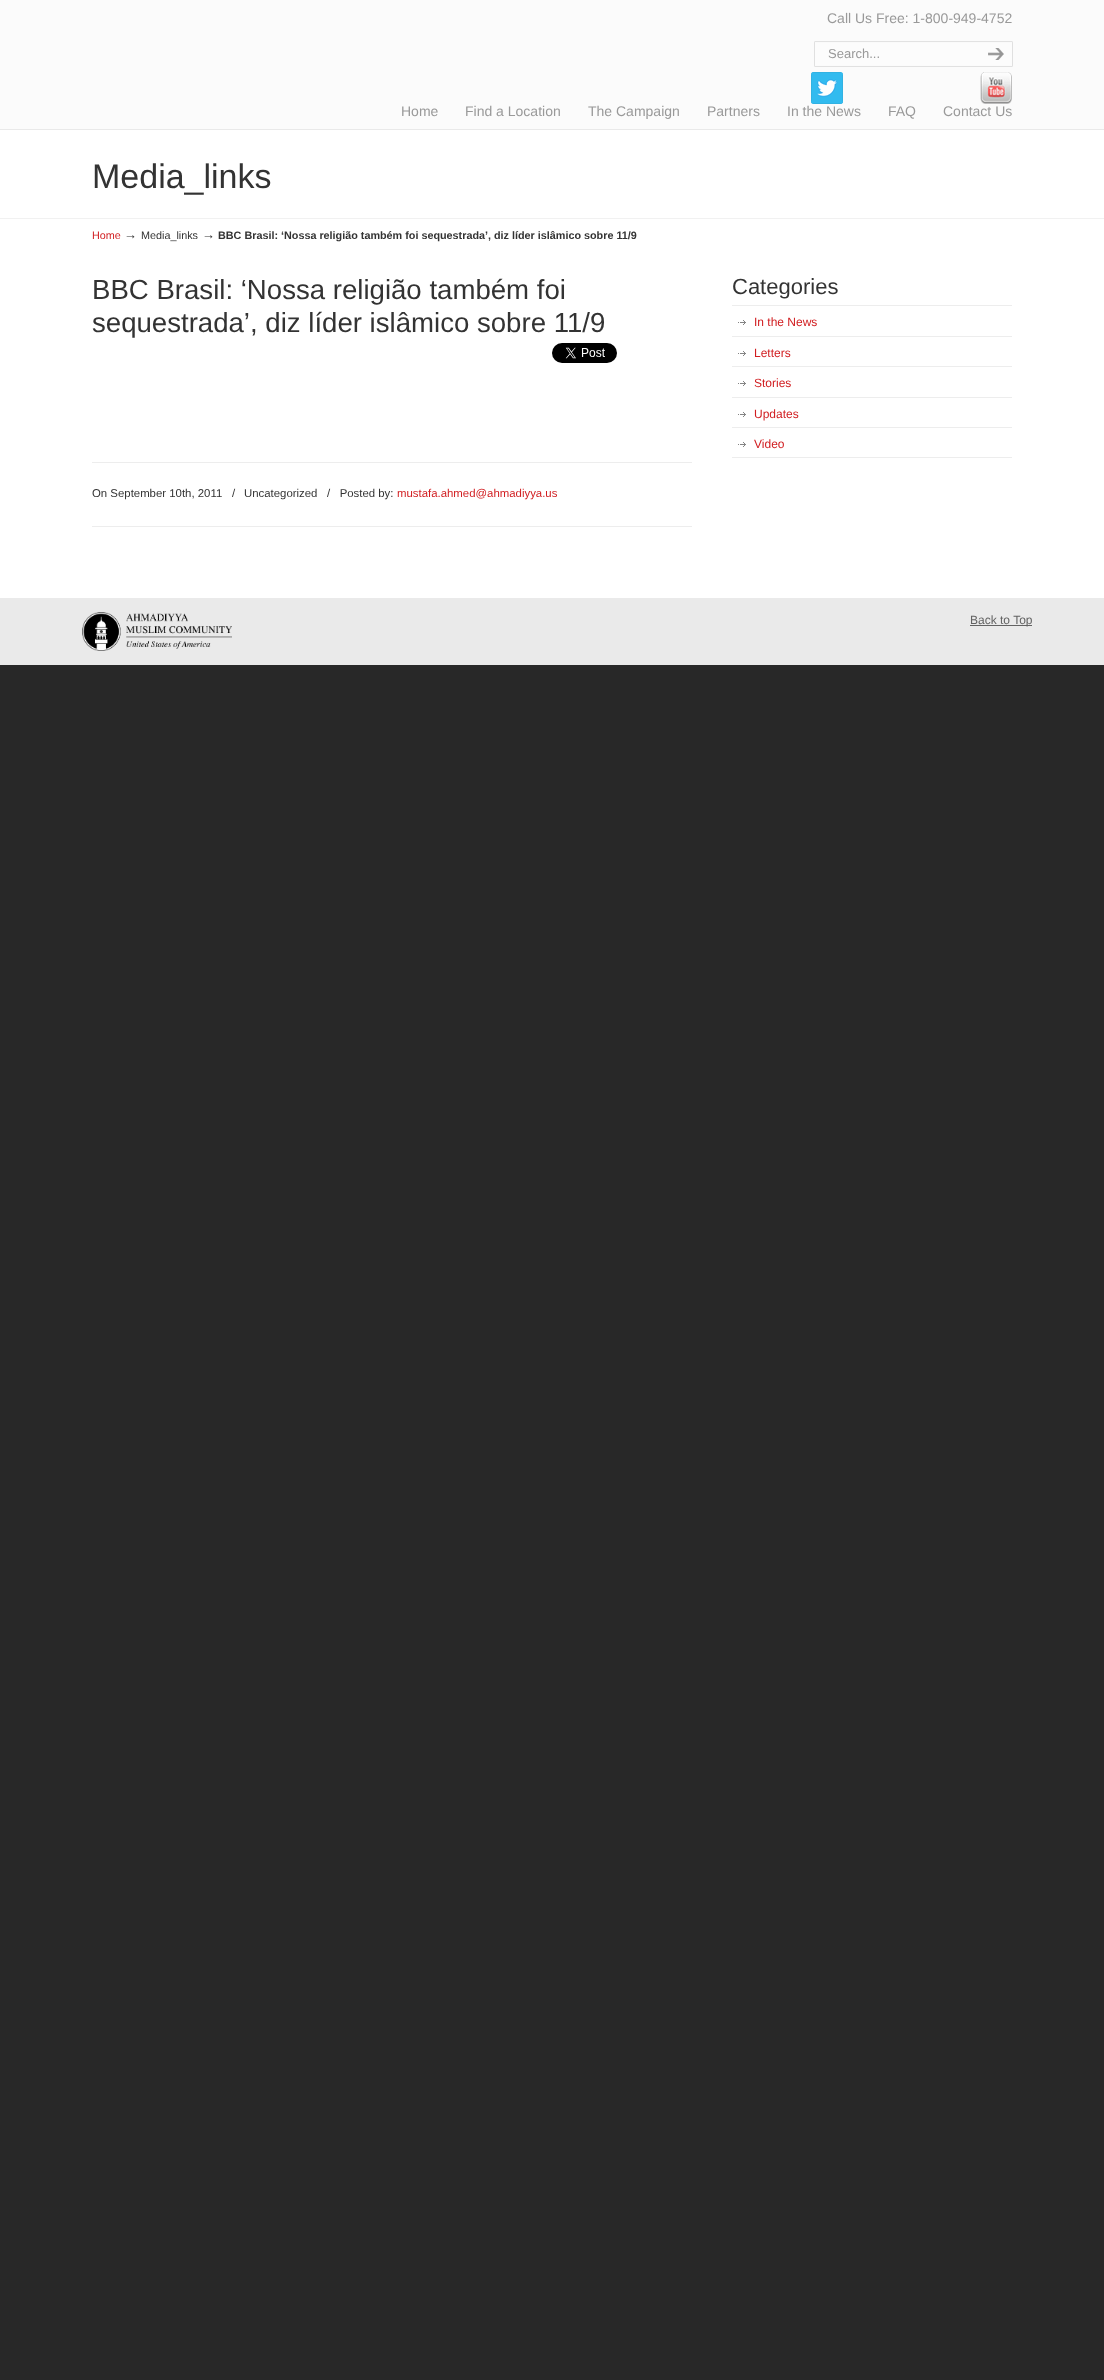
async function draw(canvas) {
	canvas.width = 1104;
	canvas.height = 2380;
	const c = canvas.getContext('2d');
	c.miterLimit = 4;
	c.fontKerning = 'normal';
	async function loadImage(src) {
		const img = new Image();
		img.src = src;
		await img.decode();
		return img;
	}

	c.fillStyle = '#282828';
	c.fillRect(0, 0, 1104, 2380);
	c.fillStyle = '#fbfbfb';
	c.fillRect(0, 0, 1104, 129);
	c.font = '14px Liberation Sans';
	c.fillStyle = '#999';
	c.fillText('Call Us Free: 1-800-949-4752', 827, 23);
	c.drawImage(await loadImage('img1.png'), 814, 41, 159, 26);
	c.font = '13px Liberation Sans';
	c.fillText('Search...', 828, 58);
	c.drawImage(await loadImage('img2.png'), 973, 41, 40, 26);
	c.drawImage(await loadImage('img3.png'), 811, 72, 32, 32);
	c.drawImage(await loadImage('img4.png'), 980, 72, 32, 32);
	c.fillStyle = '#e9e9e9';
	c.fillRect(0, 129, 1104, 1);
	c.font = '14px Liberation Sans';
	c.fillStyle = '#999';
	for (const [text, x, y] of [
		['Home', 401, 116],
		['Find a Location', 465, 116],
		['The Campaign', 588, 116],
		['Partners', 707, 116],
		['In the News', 787, 116],
		['FAQ', 888, 116],
		['Contact Us', 943, 116],
	]) {
		c.fillText(text, x, y);
	}
	c.fillStyle = '#fff';
	c.fillRect(0, 130, 1104, 468);
	c.font = '34px Liberation Sans';
	c.fillStyle = '#333';
	c.fillText('Media_links', 92, 188);
	c.drawImage(await loadImage('img5.png'), 0, 218, 1104, 1);
	c.font = '10.8px Liberation Sans';
	c.fillStyle = '#d11d20';
	c.fillText('Home', 92, 239);
	c.font = '13px Liberation Sans';
	c.fillStyle = '#333';
	c.fillText('→', 124, 239);
	c.font = '10.8px Liberation Sans';
	c.fillText('Media_links', 141, 239);
	c.font = '13px Liberation Sans';
	c.fillText('→', 202, 239);
	c.font = 'bold 10.8px Liberation Sans';
	c.fillText('BBC Brasil: ‘Nossa religião também foi sequestrada’, diz líder islâmico sobre 11/9', 218, 239);
	c.font = '27.6px Liberation Sans';
	c.fillText('BBC Brasil: ‘Nossa religião também foi', 92, 299);
	c.fillText('sequestrada’, diz líder islâmico sobre 11/9', 92, 332);
	c.drawImage(await loadImage('img6.png'), 552, 343, 65, 20);
	c.fillStyle = '#ededed';
	c.fillRect(92, 462, 600, 1);
	c.font = '11.4px Liberation Sans';
	c.fillStyle = '#333';
	for (const [text, x, y] of [
		['On September 10th, 2011', 92, 497],
		['/', 232, 497],
		['Uncategorized', 244, 497],
		['/   Posted by:', 327, 497],
	]) {
		c.fillText(text, x, y);
	}
	c.fillStyle = '#d11d20';
	c.fillText('mustafa.ahmed@ahmadiyya.us', 397, 497);
	c.fillStyle = '#ededed';
	c.fillRect(92, 526, 600, 1);
	c.fillRect(732, 305, 280, 1);
	c.font = '22px Liberation Sans';
	c.fillStyle = '#333';
	c.fillText('Categories', 732, 294);
	c.drawImage(await loadImage('img7.png'), 738, 320, 8, 5);
	c.fillStyle = '#ededed';
	c.fillRect(732, 336, 280, 1);
	c.font = '12px Liberation Sans';
	c.fillStyle = '#d11d20';
	c.fillText('In the News', 754, 326);
	c.drawImage(await loadImage('img7.png'), 738, 351, 8, 5);
	c.fillStyle = '#ededed';
	c.fillRect(732, 366, 280, 1);
	c.fillStyle = '#d11d20';
	c.fillText('Letters', 754, 357);
	c.drawImage(await loadImage('img7.png'), 738, 381, 8, 5);
	c.fillStyle = '#ededed';
	c.fillRect(732, 397, 280, 1);
	c.fillStyle = '#d11d20';
	c.fillText('Stories', 754, 387);
	c.drawImage(await loadImage('img7.png'), 738, 412, 8, 5);
	c.fillStyle = '#ededed';
	c.fillRect(732, 427, 280, 1);
	c.fillStyle = '#d11d20';
	c.fillText('Updates', 754, 418);
	c.drawImage(await loadImage('img7.png'), 738, 442, 8, 5);
	c.fillStyle = '#ededed';
	c.fillRect(732, 457, 280, 1);
	c.fillStyle = '#d11d20';
	c.fillText('Video', 754, 448);
	c.fillStyle = '#eaeaea';
	c.fillRect(0, 598, 1104, 67);
	c.drawImage(await loadImage('img8.png'), 82, 612, 150, 39);
	c.fillStyle = '#636363';
	c.fillRect(970, 625, 62, 1);
	c.fillText('Back to Top', 970, 624);
}

draw(document.querySelector('canvas'));
